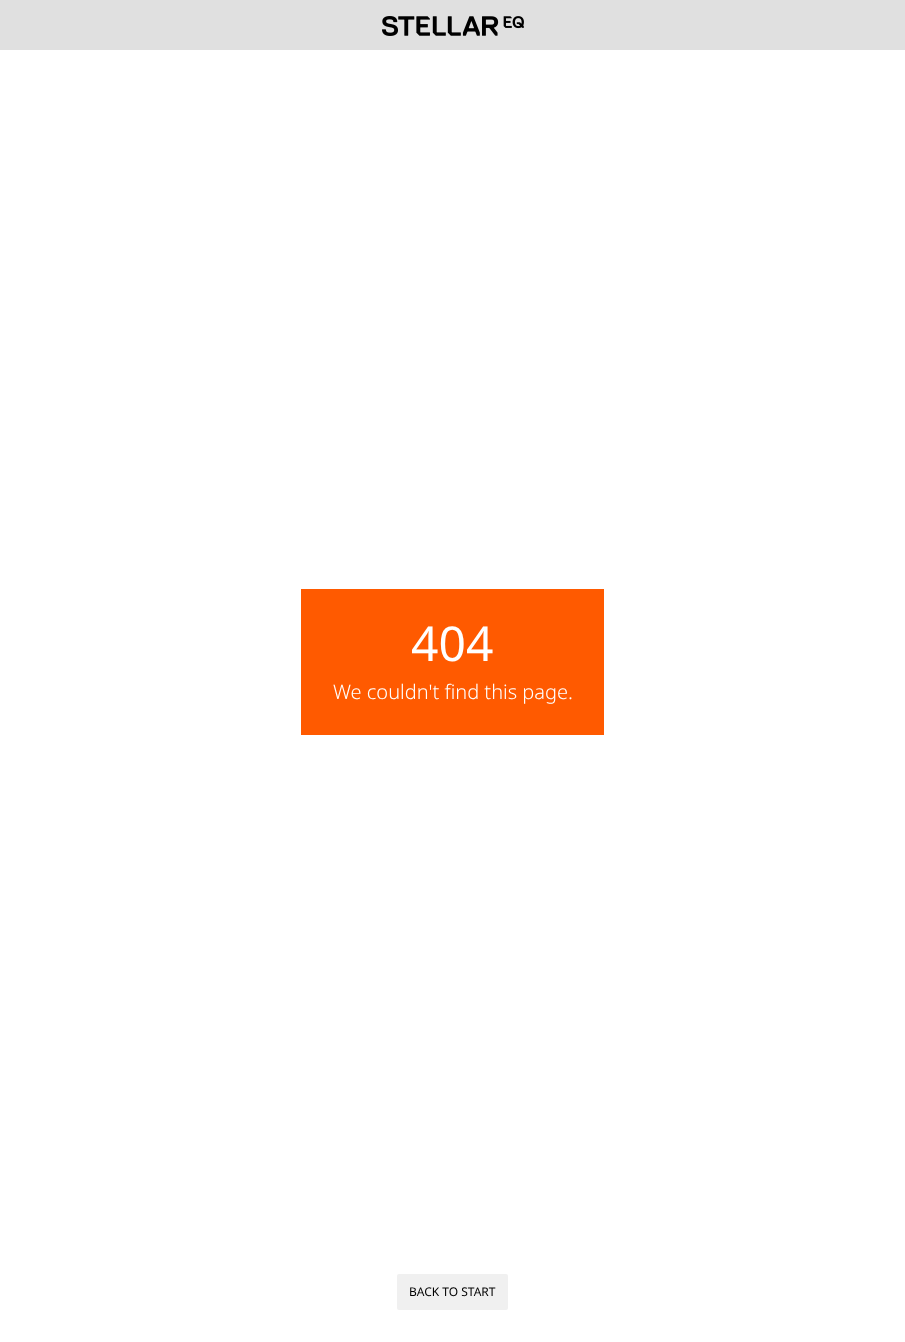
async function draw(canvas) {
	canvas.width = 905;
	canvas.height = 1342;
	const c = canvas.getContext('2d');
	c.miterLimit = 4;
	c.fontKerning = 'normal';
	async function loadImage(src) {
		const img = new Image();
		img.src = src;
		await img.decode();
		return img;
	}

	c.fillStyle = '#fff';
	c.fillRect(0, 0, 905, 1342);
	c.fillStyle = '#e0e0e0';
	c.fillRect(0, 0, 905, 50);
	c.drawImage(await loadImage('img1.png'), 382, 16, 142, 20);
	c.fillStyle = '#ff5a00';
	c.fillRect(301, 589, 303, 146);
	c.font = '48px Noto Sans';
	c.fillStyle = '#fff';
	c.fillText('404', 411, 661);
	c.font = '300 20px Noto Sans';
	c.fillText('We couldn\'t find this page.', 333, 699);
	c.fillStyle = '#f0f0f0';
	c.beginPath();
	c.roundRect(397, 1274, 111, 36, 2);
	c.fill();
	c.font = '12px Noto Sans';
	c.fillStyle = '#000';
	c.fillText('BACK TO START', 409, 1296);
}

draw(document.querySelector('canvas'));
